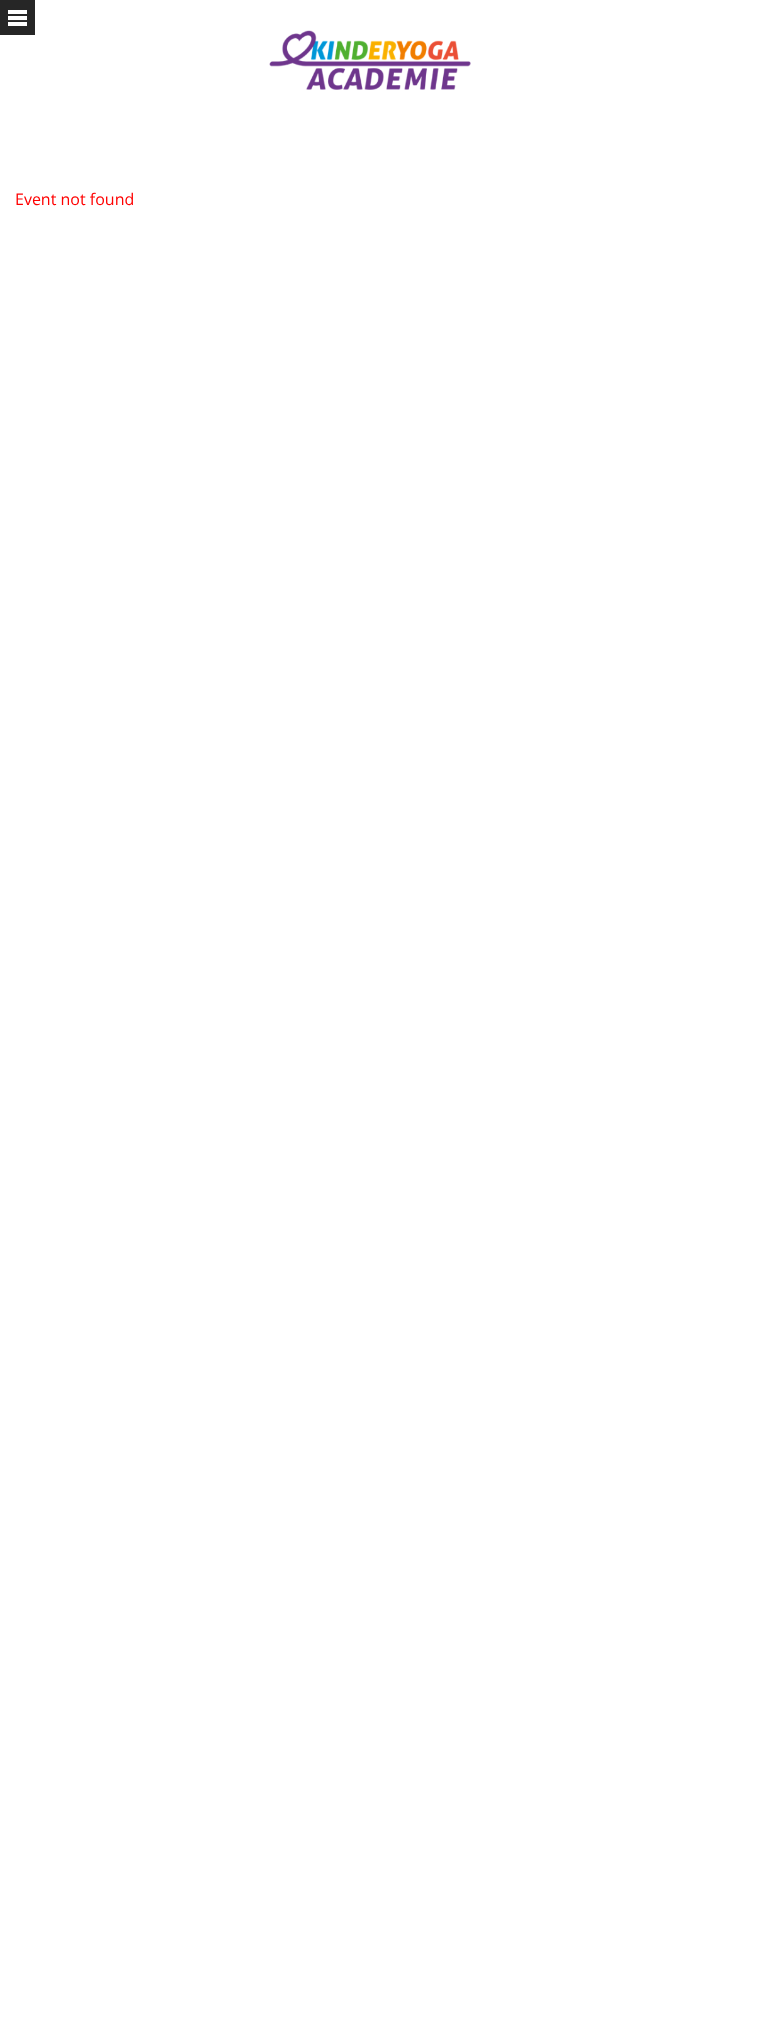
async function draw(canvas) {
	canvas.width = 771;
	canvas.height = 2040;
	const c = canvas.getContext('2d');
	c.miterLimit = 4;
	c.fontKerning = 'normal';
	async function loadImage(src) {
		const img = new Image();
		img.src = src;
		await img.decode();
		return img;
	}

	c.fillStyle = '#fff';
	c.fillRect(0, 0, 771, 2040);
	c.fillStyle = '#262626';
	c.fillRect(0, 0, 35, 35);
	c.drawImage(await loadImage('img1.png'), 8, 10, 19, 16);
	c.drawImage(await loadImage('img2.png'), 269, 30, 202, 60);
	c.font = '16px Open Sans';
	c.fillStyle = '#f00';
	c.fillText('Event not found', 15, 205);
}

draw(document.querySelector('canvas'));
